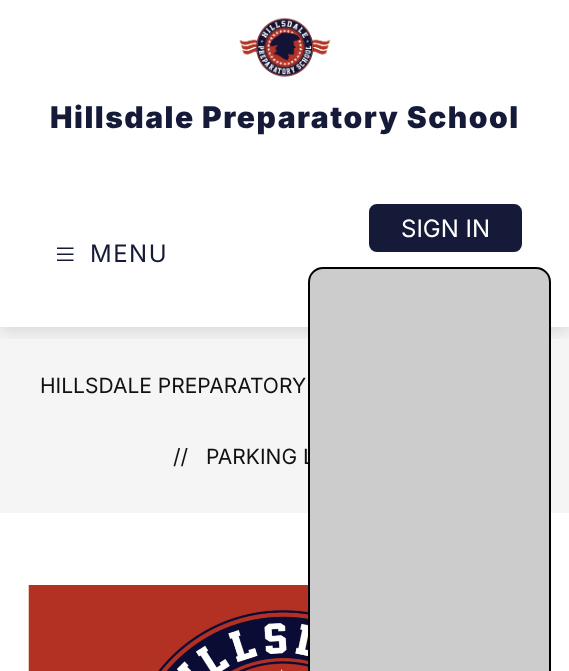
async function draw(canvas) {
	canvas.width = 569;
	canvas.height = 671;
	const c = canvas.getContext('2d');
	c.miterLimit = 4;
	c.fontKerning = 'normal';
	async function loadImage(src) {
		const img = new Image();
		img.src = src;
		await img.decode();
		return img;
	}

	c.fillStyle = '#fff';
	c.fillRect(0, 0, 569, 671);
	c.fillStyle = '#f5f5f5';
	c.fillRect(0, 327, 569, 186);
	c.save();
	c.beginPath();
	c.rect(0, 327, 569, 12);
	c.clip();
	c.fillStyle = '#0000001a';
	c.filter = 'blur(7.5px)';
	c.beginPath();
	c.rect(0, 6, 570, 327);
	c.fill();
	c.filter = 'none';
	c.restore();
	c.drawImage(await loadImage('img1.png'), 239, 17, 92, 60);
	c.letterSpacing = '1.5px';
	c.font = '900 30px Inter';
	c.fillStyle = '#151a38';
	c.fillText('Hillsdale Preparatory School', 50, 128);
	c.beginPath();
	c.roundRect(370, 205, 151, 46, 7);
	c.fill();
	c.strokeStyle = '#151a38';
	c.lineWidth = 2;
	c.stroke();
	c.letterSpacing = '0px';
	c.font = '24px Inter';
	c.fillStyle = '#fff';
	c.fillText('SIGN IN', 401, 237);
	c.drawImage(await loadImage('img2.png'), 57, 247, 17, 14);
	c.letterSpacing = '1.5px';
	c.fillStyle = '#151a38';
	c.fillText('MENU', 90, 262);
	c.letterSpacing = '0px';
	c.font = '21px Inter';
	c.fillStyle = '#111';
	for (const [text, x, y] of [
		['HILLSDALE PREPARATORY', 40, 393],
		['//', 173, 464],
		['PARKING L', 206, 464],
	]) {
		c.fillText(text, x, y);
	}
	c.drawImage(await loadImage('img3.png'), 28, 585, 280, 86);
	c.fillStyle = '#ccc';
	c.beginPath();
	c.roundRect(309, 268, 241, 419, 14);
	c.fill();
	c.strokeStyle = '#000';
	c.stroke();
}

draw(document.querySelector('canvas'));
